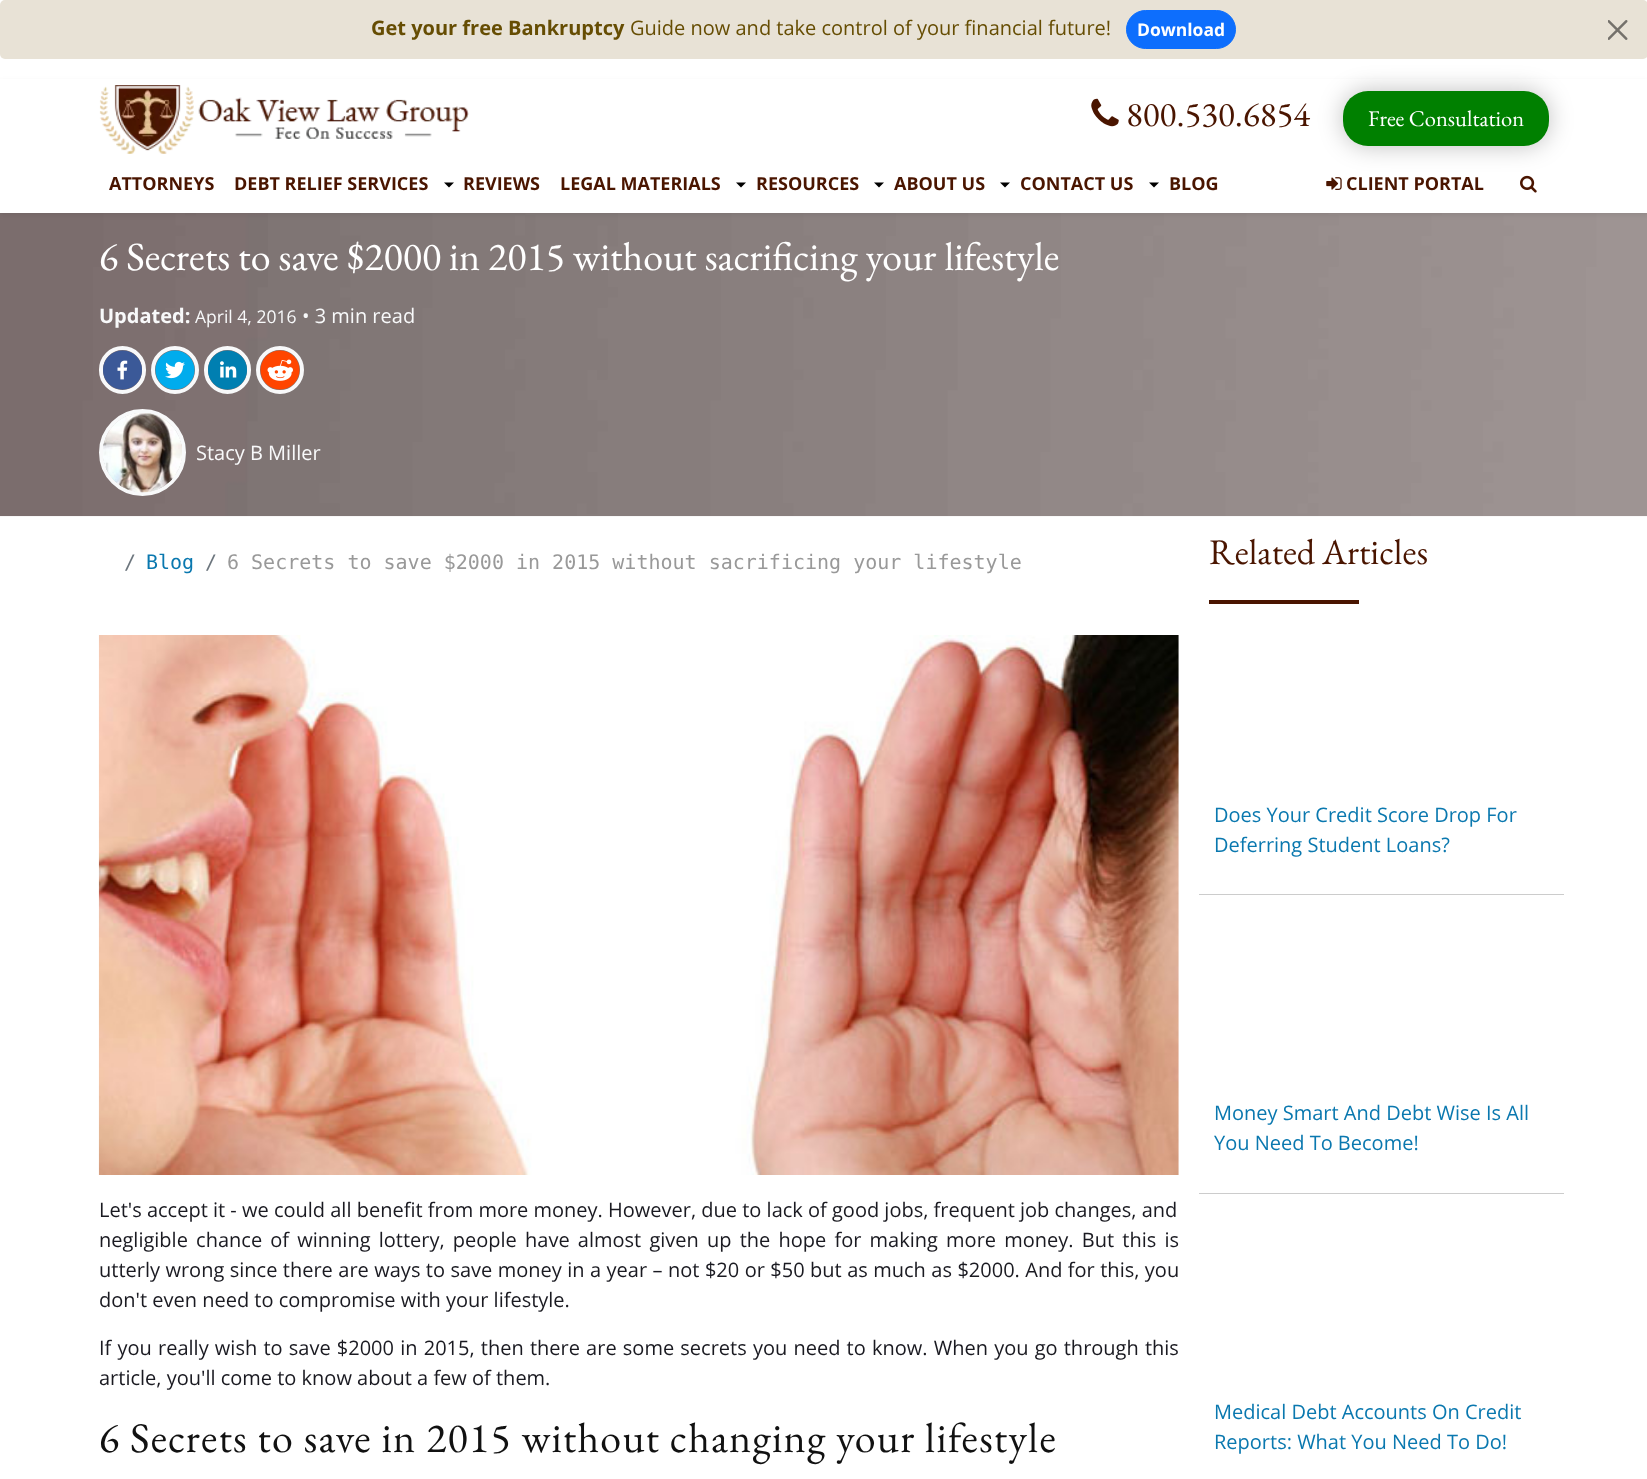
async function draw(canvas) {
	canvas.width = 1647;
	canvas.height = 1479;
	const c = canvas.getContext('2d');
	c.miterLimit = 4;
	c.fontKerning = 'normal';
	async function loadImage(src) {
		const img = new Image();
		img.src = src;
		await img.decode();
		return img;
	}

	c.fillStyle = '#fff';
	c.fillRect(0, 0, 1647, 1479);
	c.fillStyle = '#e8e2d6';
	c.beginPath();
	c.roundRect(0, 0, 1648, 59, 5);
	c.fill();
	c.font = 'bold 20px Open Sans';
	c.fillStyle = '#664d03';
	c.fillText('Get your free Bankruptcy', 371, 35);
	c.font = '20px Open Sans';
	c.fillText('Guide now and take control of your financial future!', 630, 35);
	c.fillStyle = '#0d6efd';
	c.beginPath();
	c.roundRect(1126.5, 10.5, 109, 38, 19);
	c.fill();
	c.strokeStyle = '#0d6efd';
	c.stroke();
	c.font = 'bold 17.5px Open Sans';
	c.fillStyle = '#fff';
	c.fillText('Download', 1137, 36);
	c.drawImage(await loadImage('img1.png'), 1608, 20, 20, 20);
	c.drawImage(await loadImage('img6.png'), 0, 213, 1647, 304);
	c.fillStyle = '#00000012';
	c.filter = 'blur(2.5px)';
	c.beginPath();
	c.rect(0, 81, 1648, 134);
	c.fill();
	c.filter = 'none';
	c.fillStyle = '#fff';
	c.fillRect(0, 79, 1647, 134);
	c.drawImage(await loadImage('img2.png'), 99, 85, 370, 69);
	c.drawImage(await loadImage('img3.png'), 1091, 98, 28, 29);
	c.font = '35px EB Garamond';
	c.fillStyle = '#4a1500';
	c.fillText('800.530.6854', 1126, 126);
	c.fillStyle = '#00000040';
	c.filter = 'blur(12.5px)';
	c.beginPath();
	c.roundRect(1343, 91, 206, 55, 25);
	c.fill();
	c.filter = 'none';
	c.fillStyle = '#008000';
	c.beginPath();
	c.roundRect(1343, 91, 206, 55, 25);
	c.fill();
	c.font = '22.5px EB Garamond';
	c.fillStyle = '#fff';
	c.fillText('Free Consultation', 1368, 126);
	c.font = 'bold 18px Open Sans';
	c.fillStyle = '#4a1500';
	c.fillText('ATTORNEYS', 109, 190);
	c.fillText('DEBT RELIEF SERVICES', 234, 190);
	c.fillStyle = '#000';
	c.beginPath();
	c.moveTo(444, 182.5);
	c.lineTo(454, 182.5);
	c.lineTo(449, 187.5);
	c.closePath();
	c.fill();
	c.fillStyle = '#4a1500';
	c.fillText('REVIEWS', 463, 190);
	c.fillText('LEGAL MATERIALS', 560, 190);
	c.fillStyle = '#000';
	c.beginPath();
	c.moveTo(736, 182.5);
	c.lineTo(746, 182.5);
	c.lineTo(741, 187.5);
	c.closePath();
	c.fill();
	c.fillStyle = '#4a1500';
	c.fillText('RESOURCES', 756, 190);
	c.fillStyle = '#000';
	c.beginPath();
	c.moveTo(874, 182.5);
	c.lineTo(884, 182.5);
	c.lineTo(879, 187.5);
	c.closePath();
	c.fill();
	c.fillStyle = '#4a1500';
	c.fillText('ABOUT US', 894, 190);
	c.fillStyle = '#000';
	c.beginPath();
	c.moveTo(1000, 182.5);
	c.lineTo(1010, 182.5);
	c.lineTo(1005, 187.5);
	c.closePath();
	c.fill();
	c.fillStyle = '#4a1500';
	c.fillText('CONTACT US', 1020, 190);
	c.fillStyle = '#000';
	c.beginPath();
	c.moveTo(1149, 182.5);
	c.lineTo(1159, 182.5);
	c.lineTo(1154, 187.5);
	c.closePath();
	c.fill();
	c.fillStyle = '#4a1500';
	c.fillText('BLOG', 1169, 190);
	c.drawImage(await loadImage('img4.png'), 1326, 177, 16, 13);
	c.fillText('CLIENT PORTAL', 1346, 190);
	c.drawImage(await loadImage('img5.png'), 1520, 175, 17, 18);
	c.font = '40px EB Garamond';
	c.fillStyle = '#fff';
	c.fillText('6 Secrets to save $2000 in 2015 without sacrificing your lifestyle', 99, 270);
	c.font = 'bold 20px Open Sans';
	c.fillStyle = '#f8f9fa';
	c.fillText('Updated:', 99, 323);
	c.font = '17.5px Open Sans';
	c.fillText('April 4, 2016', 195, 323);
	c.font = '20px Open Sans';
	c.fillText('• 3 min read', 302, 323);
	c.beginPath();
	c.roundRect(101, 348, 43, 44, 21.5);
	c.strokeStyle = '#f8f9fa';
	c.lineWidth = 4;
	c.stroke();
	c.drawImage(await loadImage('img7.png'), 103, 350, 39, 40);
	c.beginPath();
	c.arc(175, 370, 22, 0, 2 * Math.PI);
	c.stroke();
	c.drawImage(await loadImage('img8.png'), 155, 350, 40, 40);
	c.beginPath();
	c.roundRect(206, 348, 43, 44, 21.5);
	c.stroke();
	c.drawImage(await loadImage('img9.png'), 208, 350, 39, 40);
	c.beginPath();
	c.arc(280, 370, 22, 0, 2 * Math.PI);
	c.stroke();
	c.drawImage(await loadImage('img10.png'), 260, 350, 40, 40);
	c.beginPath();
	c.arc(142.5, 452.5, 41.5, 0, 2 * Math.PI);
	c.stroke();
	c.drawImage(await loadImage('img11.png'), 103, 413, 79, 80);
	c.fillText('Stacy B Miller', 196, 460);
	c.font = '20px DejaVu Sans Mono';
	c.fillStyle = '#6c757d';
	c.fillText('/', 124, 569);
	c.fillStyle = '#0a78af';
	c.fillText('Blog', 146, 569);
	c.fillStyle = '#6c757d';
	c.fillText('/', 205, 569);
	c.fillStyle = '#999';
	c.fillText('6 Secrets to save $2000 in 2015 without sacrificing your lifestyle', 227, 569);
	c.drawImage(await loadImage('img12.png'), 98, 635, 1081, 540);
	c.font = '20px Open Sans';
	c.fillStyle = '#1a1a21';
	c.fillText('Let\'s accept it - we could all benefit from more money. However, due to lack of good jobs, frequent job changes, and', 99, 1217);
	c.wordSpacing = '3px';
	c.fillText('negligible chance of winning lottery, people have almost given up the hope for making more money. But this is', 99, 1247);
	c.wordSpacing = '0.25px';
	c.fillText('utterly wrong since there are ways to save money in a year – not $20 or $50 but as much as $2000. And for this, you', 99, 1277);
	c.wordSpacing = '0px';
	c.fillText('don\'t even need to compromise with your lifestyle.', 99, 1307);
	c.wordSpacing = '1px';
	c.fillText('If you really wish to save $2000 in 2015, then there are some secrets you need to know. When you go through this', 99, 1355);
	c.wordSpacing = '0px';
	c.fillText('article, you\'ll come to know about a few of them.', 99, 1385);
	c.letterSpacing = '1.25px';
	c.font = '42px EB Garamond';
	c.fillStyle = '#111';
	c.fillText('6 Secrets to save in 2015 without changing your lifestyle', 99, 1452);
	c.letterSpacing = '0px';
	c.font = '36px EB Garamond';
	c.fillStyle = '#4a1500';
	c.fillText('Related Articles', 1209, 564);
	c.fillRect(1209, 600, 150, 4);
	c.fillStyle = '#ccc';
	c.fillRect(1199, 894, 365, 1);
	c.font = '20px Open Sans';
	c.fillStyle = '#0a78af';
	c.fillText('Does Your Credit Score Drop For', 1214, 822);
	c.fillText('Deferring Student Loans?', 1214, 852);
	c.fillStyle = '#ccc';
	c.fillRect(1199, 1193, 365, 1);
	c.fillStyle = '#0a78af';
	for (const [text, x, y] of [
		['Money Smart And Debt Wise Is All', 1214, 1120],
		['You Need To Become!', 1214, 1150],
		['Medical Debt Accounts On Credit', 1214, 1419],
		['Reports: What You Need To Do!', 1214, 1449],
	]) {
		c.fillText(text, x, y);
	}
}

draw(document.querySelector('canvas'));
